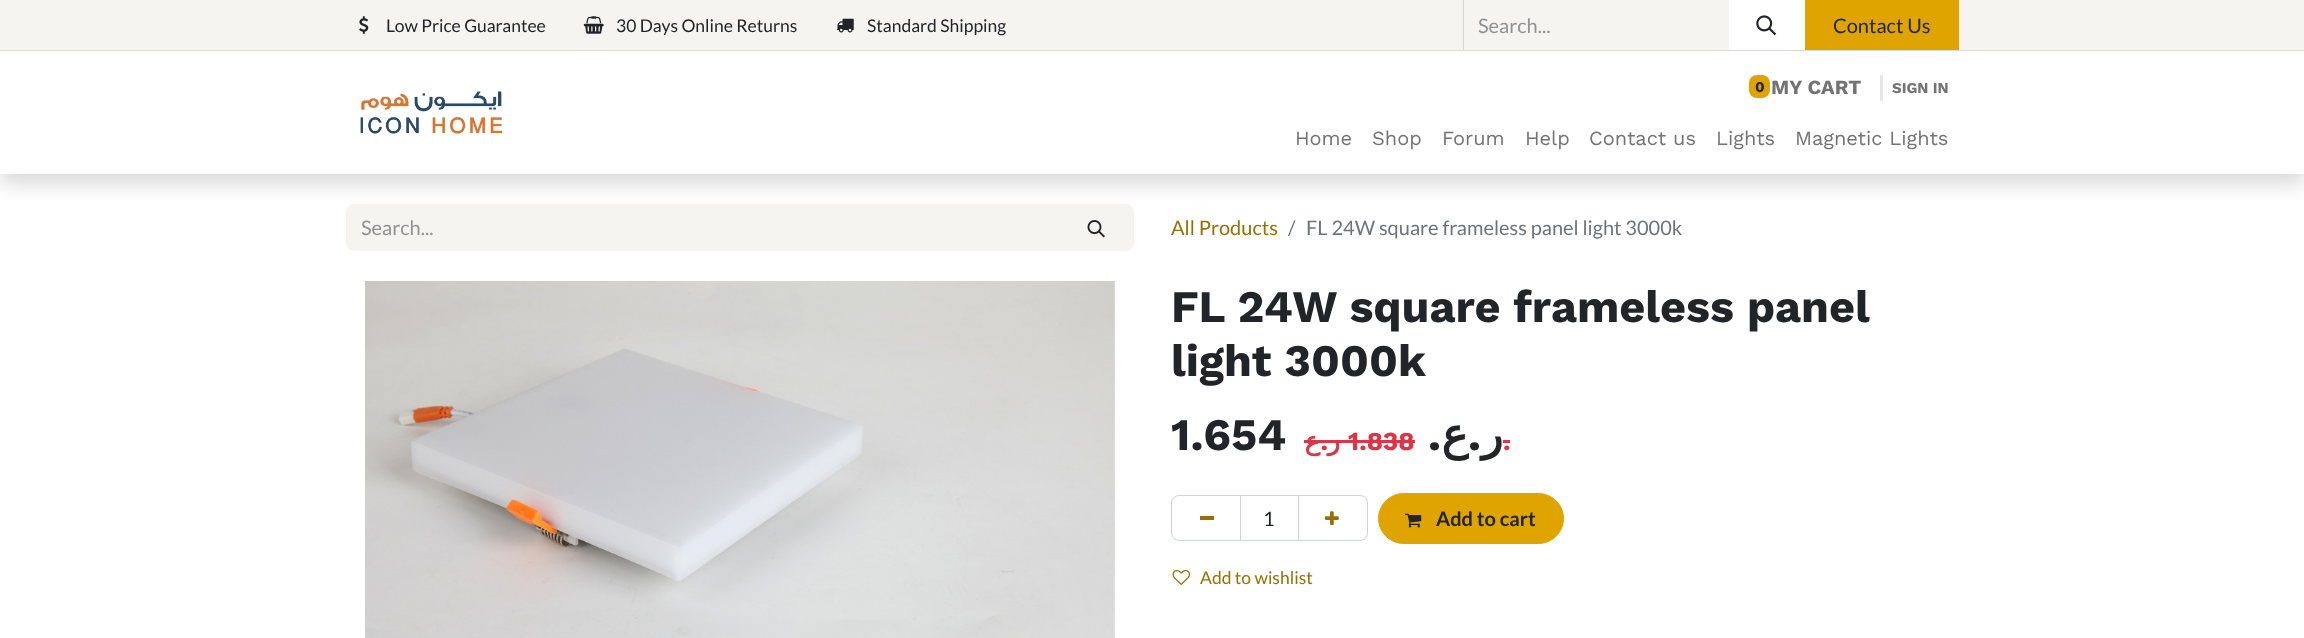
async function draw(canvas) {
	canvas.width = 2304;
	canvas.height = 638;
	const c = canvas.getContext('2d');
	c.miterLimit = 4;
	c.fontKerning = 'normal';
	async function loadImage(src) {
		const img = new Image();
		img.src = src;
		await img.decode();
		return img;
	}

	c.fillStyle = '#fff';
	c.fillRect(0, 0, 2304, 638);
	c.fillStyle = '#f5f4f0';
	c.beginPath();
	c.roundRect(346, 204, 715, 47, [8, 0, 0, 8]);
	c.fill();
	c.beginPath();
	c.roundRect(1060.5, 204.5, 73, 46, [0, 7.5, 7.5, 0]);
	c.fill();
	c.strokeStyle = '#f5f4f0';
	c.stroke();
	c.fillStyle = '#00000026';
	c.filter = 'blur(10px)';
	c.beginPath();
	c.rect(0, 10, 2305, 174);
	c.fill();
	c.filter = 'none';
	for (const [x, y, w, h, color] of [
		[0, 51, 2304, 123, '#fff'],
		[0, 0, 2304, 50, '#f5f4f0'],
		[0, 50, 2304, 1, '#dddcd8'],
	]) {
		c.fillStyle = color;
		c.fillRect(x, y, w, h);
	}
	c.drawImage(await loadImage('img1.png'), 359, 16, 10, 18);
	c.font = '17.5px Lato';
	c.fillStyle = '#212529';
	c.fillText('Low Price Guarantee', 386, 32);
	c.drawImage(await loadImage('img2.png'), 583, 16, 21, 18);
	c.fillText('30 Days Online Returns', 616, 32);
	c.drawImage(await loadImage('img3.png'), 836, 18, 18, 15);
	c.fillText('Standard Shipping', 867, 32);
	c.fillStyle = '#d5d5d2';
	c.fillRect(1463, 0, 1, 50);
	c.font = '20px Lato';
	c.fillStyle = '#909294';
	c.fillText('Search...', 1478, 33);
	c.fillStyle = '#fff';
	c.fillRect(1729, 0, 76, 50);
	c.drawImage(await loadImage('img4.png'), 1756, 15, 21, 21);
	c.fillStyle = '#dfa400';
	c.fillRect(1805, 0, 154, 50);
	c.fillStyle = '#212529';
	c.fillText('Contact Us', 1833, 33);
	c.drawImage(await loadImage('img5.png'), 360, 91, 143, 45);
	c.fillStyle = '#dfa400';
	c.beginPath();
	c.roundRect(1749, 75, 21, 23, 8);
	c.fill();
	c.font = 'bold 15px Work Sans';
	c.fillStyle = '#212529';
	c.fillText('0', 1755, 92);
	c.font = 'bold 20px Work Sans';
	c.fillStyle = '#737373';
	c.fillText('MY CART', 1771, 94);
	c.fillStyle = '#e6e6e6';
	c.fillRect(1880, 75, 3, 26);
	c.font = 'bold 15px Work Sans';
	c.fillStyle = '#737373';
	c.fillText('SIGN IN', 1892, 93);
	c.font = '20px Work Sans';
	for (const [text, x, y] of [
		['Home', 1295, 145],
		['Shop', 1372, 145],
		['Forum', 1442, 145],
		['Help', 1525, 145],
		['Contact us', 1589, 145],
		['Lights', 1716, 145],
		['Magnetic Lights', 1795, 145],
	]) {
		c.fillText(text, x, y);
	}
	c.font = '20px Lato';
	c.fillStyle = '#909294';
	c.fillText('Search...', 361, 235);
	c.drawImage(await loadImage('img6.png'), 1087, 220, 18, 18);
	c.fillStyle = '#986f00';
	c.fillText('All Products', 1171, 235);
	c.fillStyle = '#6c757d';
	c.fillText('/', 1288, 235);
	c.fillText('FL 24W square frameless panel light 3000k', 1306, 235);
	c.drawImage(await loadImage('img7.png'), 365, 281, 750, 357);
	c.font = 'bold 45px Work Sans';
	c.fillStyle = '#212529';
	for (const [text, x, y] of [
		['FL 24W square frameless panel', 1171, 322],
		['light 3000k', 1171, 376],
		['1.654', 1171, 450],
	]) {
		c.fillText(text, x, y);
	}
	c.direction = 'rtl';
	c.font = 'bold 26px DejaVu Sans';
	c.fillStyle = '#dc3545';
	c.fillText('ع', 1320, 450);
	c.font = 'bold 26px Work Sans';
	c.fillText('.', 1328, 450);
	c.font = 'bold 26px DejaVu Sans';
	c.fillText('ر', 1340, 450);
	c.direction = 'ltr';
	c.font = 'bold 26px Work Sans';
	c.fillText('1.838', 1348, 450);
	c.fillRect(1348, 440, 67, 3);
	c.fillRect(1304, 440, 44, 3);
	c.direction = 'rtl';
	c.font = 'bold 45px Work Sans';
	c.fillStyle = '#212529';
	c.fillText('.', 1441, 450);
	c.font = 'bold 45px DejaVu Sans';
	c.fillText('ع', 1468, 450);
	c.font = 'bold 45px Work Sans';
	c.fillText('.', 1481, 450);
	c.font = 'bold 45px DejaVu Sans';
	c.fillText('ر', 1503, 450);
	c.direction = 'ltr';
	c.font = 'bold 26px Work Sans';
	c.fillStyle = '#dc3545';
	c.fillText('.', 1503, 450);
	c.fillRect(1503, 440, 7, 3);
	c.strokeStyle = '#ced4da';
	c.strokeRect(1240.5, 495.5, 58, 45);
	c.beginPath();
	c.roundRect(1171.5, 495.5, 69, 45, [7.5, 0, 0, 7.5]);
	c.stroke();
	c.fillStyle = '#986f00';
	c.fillRect(1200, 516, 14, 4);
	c.font = '20px Lato';
	c.fillStyle = '#212529';
	c.fillText('1', 1263, 526);
	c.beginPath();
	c.roundRect(1298.5, 495.5, 69, 45, [0, 7.5, 7.5, 0]);
	c.stroke();
	c.drawImage(await loadImage('img8.png'), 1325, 511, 14, 14);
	c.fillStyle = '#dfa400';
	c.beginPath();
	c.roundRect(1378.5, 493.5, 185, 50, 25);
	c.fill();
	c.strokeStyle = '#dfa400';
	c.stroke();
	c.drawImage(await loadImage('img9.png'), 1405, 513, 17, 15);
	c.font = 'bold 20px Lato';
	c.fillStyle = '#212529';
	c.fillText('Add to cart', 1436, 526);
	c.drawImage(await loadImage('img10.png'), 1172, 570, 18, 15);
	c.font = '17.5px Lato';
	c.fillStyle = '#986f00';
	c.fillText('Add to wishlist', 1200, 584);
}

draw(document.querySelector('canvas'));
